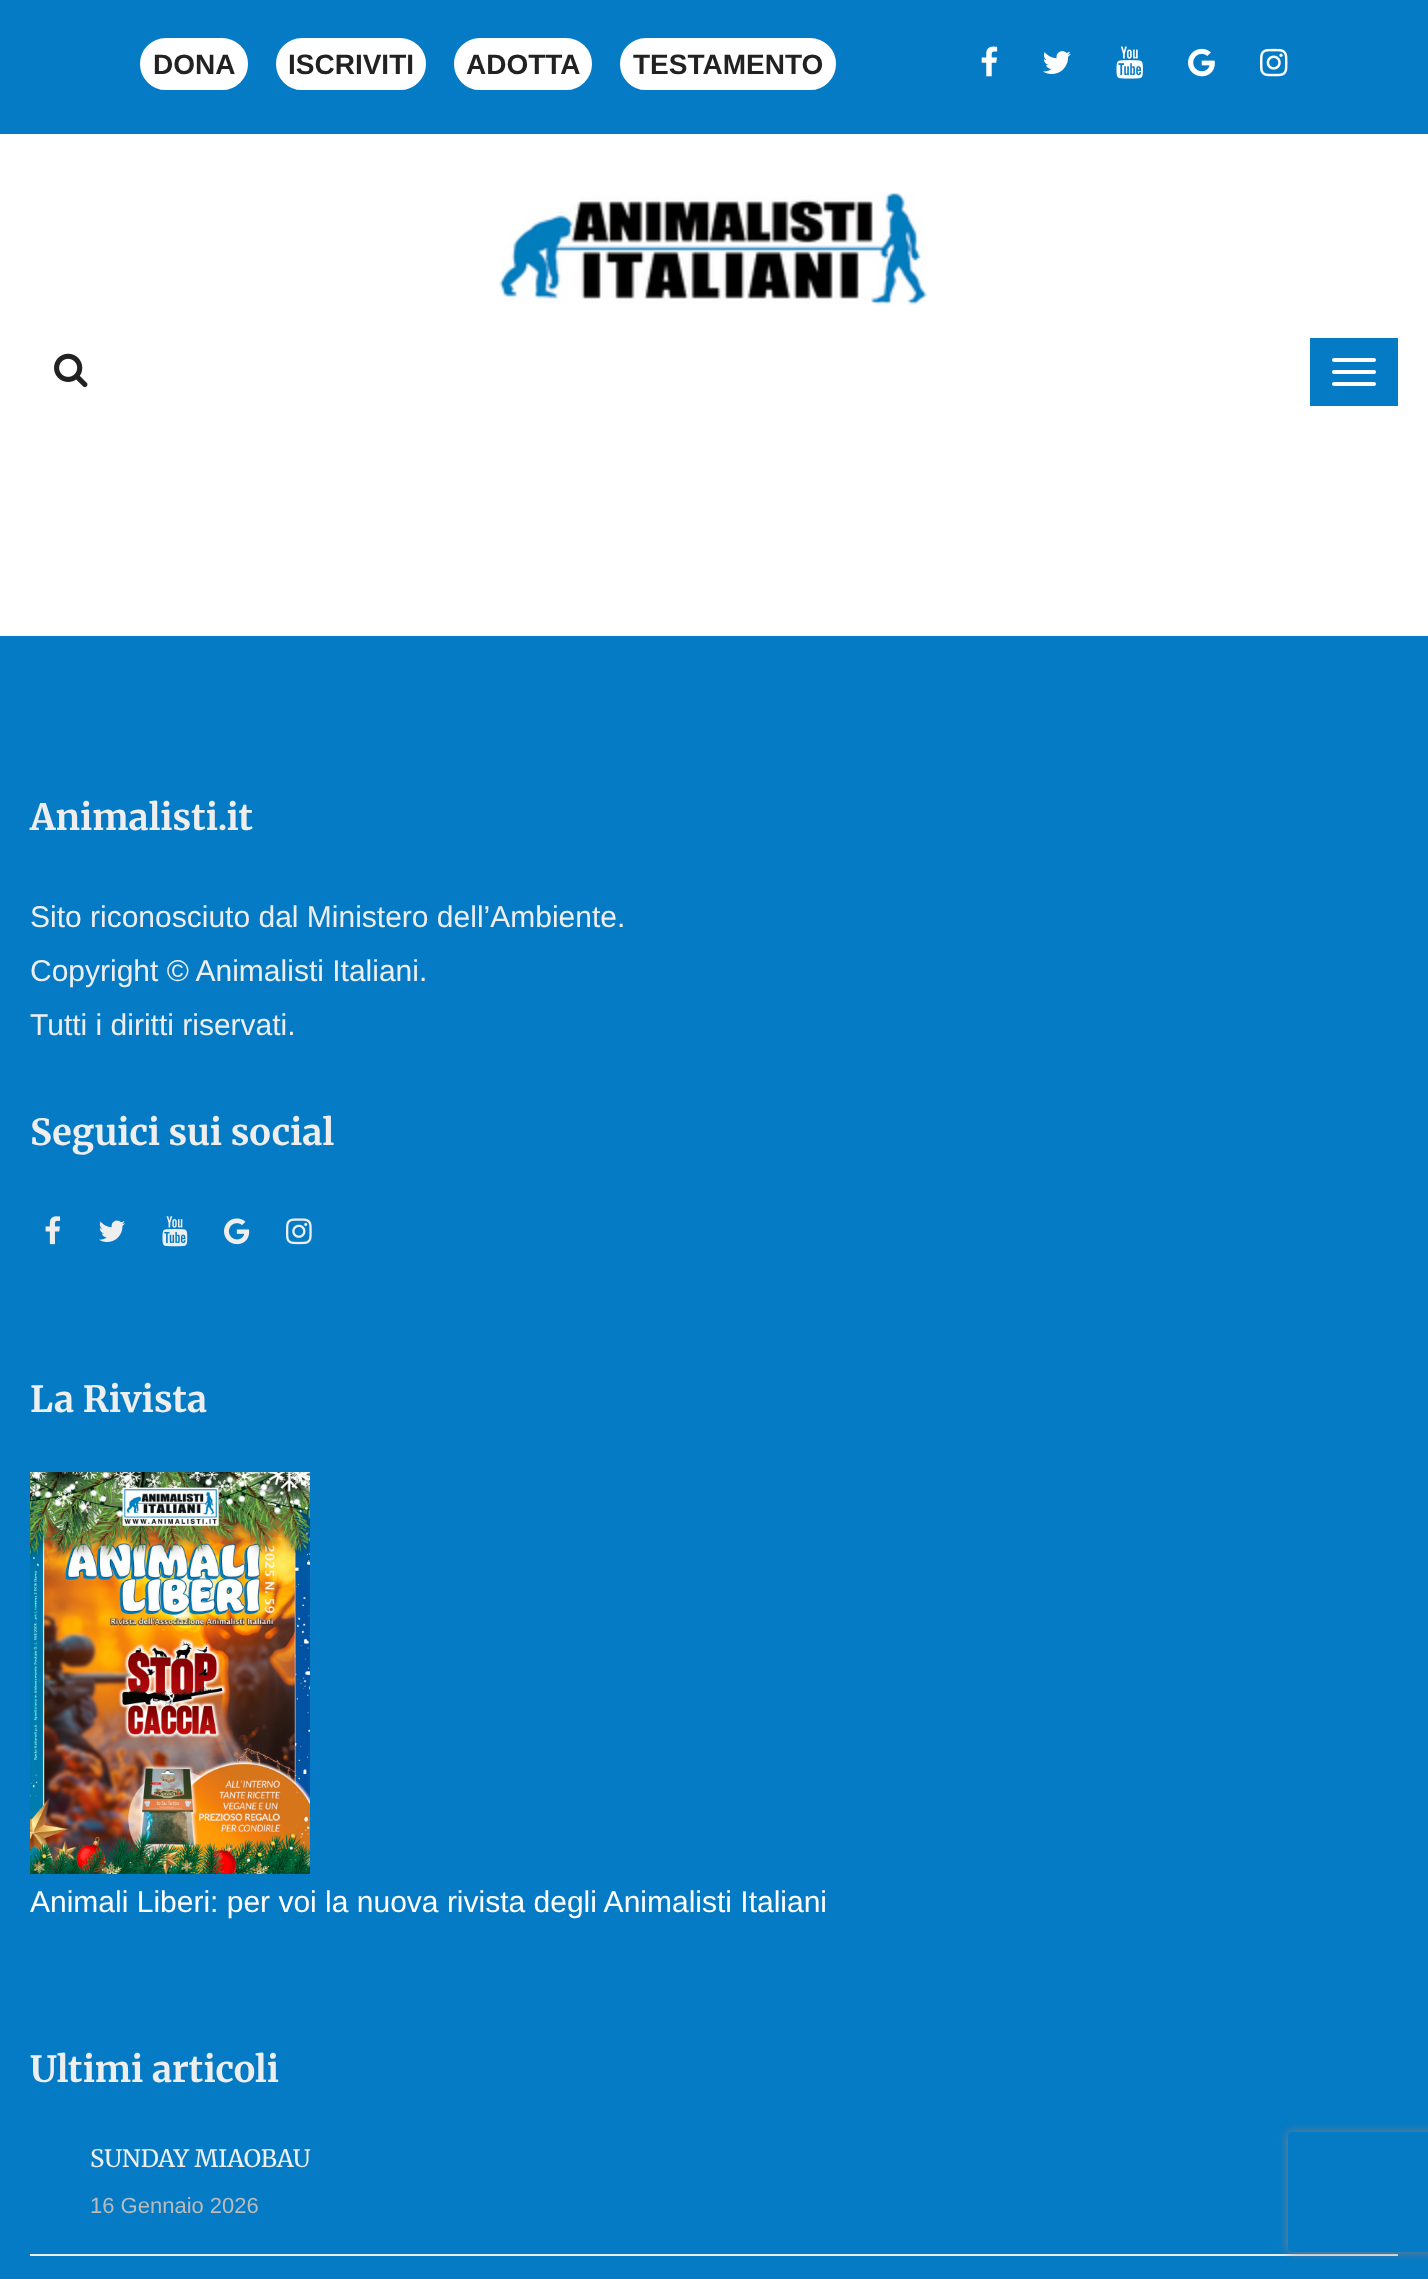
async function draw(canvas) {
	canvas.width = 1428;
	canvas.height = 2279;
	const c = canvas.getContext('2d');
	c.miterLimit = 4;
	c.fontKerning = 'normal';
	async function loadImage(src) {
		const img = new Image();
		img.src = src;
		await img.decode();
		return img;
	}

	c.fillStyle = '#fff';
	c.fillRect(0, 0, 1428, 2279);
	c.fillStyle = '#057bc5';
	c.fillRect(0, 0, 1428, 134);
	c.fillStyle = '#fff';
	c.beginPath();
	c.roundRect(142, 40, 104, 48, 24);
	c.fill();
	c.strokeStyle = '#fff';
	c.lineWidth = 4;
	c.stroke();
	c.font = 'bold 28px Liberation Sans';
	c.fillStyle = '#222';
	c.fillText('DONA', 153, 74);
	c.fillStyle = '#fff';
	c.beginPath();
	c.roundRect(278, 40, 146, 48, 24);
	c.fill();
	c.stroke();
	c.fillStyle = '#222';
	c.fillText('ISCRIVITI', 288, 74);
	c.fillStyle = '#fff';
	c.beginPath();
	c.roundRect(456, 40, 134, 48, 24);
	c.fill();
	c.stroke();
	c.fillStyle = '#222';
	c.fillText('ADOTTA', 466, 74);
	c.fillStyle = '#fff';
	c.beginPath();
	c.roundRect(622, 40, 212, 48, 24);
	c.fill();
	c.stroke();
	c.fillStyle = '#222';
	c.fillText('TESTAMENTO', 633, 74);
	c.drawImage(await loadImage('img1.png'), 981, 46, 17, 31);
	c.drawImage(await loadImage('img2.png'), 1043, 51, 28, 23);
	c.drawImage(await loadImage('img3.png'), 1116, 46, 27, 33);
	c.drawImage(await loadImage('img4.png'), 1188, 48, 27, 29);
	c.drawImage(await loadImage('img5.png'), 1260, 48, 28, 29);
	c.drawImage(await loadImage('img6.png'), 499, 192, 428, 113);
	c.drawImage(await loadImage('img7.png'), 54, 353, 34, 35);
	c.fillStyle = '#057bc5';
	c.fillRect(1310, 338, 88, 68);
	c.fillStyle = '#fff';
	c.beginPath();
	c.roundRect(1332, 358, 44, 4, 2);
	c.fill();
	c.beginPath();
	c.roundRect(1332, 370, 44, 4, 2);
	c.fill();
	c.beginPath();
	c.roundRect(1332, 382, 44, 4, 2);
	c.fill();
	c.fillStyle = '#057bc5';
	c.fillRect(0, 636, 1428, 1643);
	c.font = 'bold 36px Merriweather';
	c.fillStyle = '#eee';
	c.fillText('Animalisti.it', 30, 830);
	c.font = '30px Liberation Sans';
	for (const [text, x, y] of [
		['Sito riconosciuto dal Ministero dell’Ambiente.', 30, 927],
		['Copyright © Animalisti Italiani.', 30, 981],
		['Tutti i diritti riservati.', 30, 1035],
	]) {
		c.fillText(text, x, y);
	}
	c.font = 'bold 36px Merriweather';
	c.fillText('Seguici sui social', 30, 1145);
	c.drawImage(await loadImage('img8.png'), 45, 1216, 16, 29);
	c.drawImage(await loadImage('img9.png'), 99, 1220, 26, 22);
	c.drawImage(await loadImage('img10.png'), 162, 1216, 26, 31);
	c.drawImage(await loadImage('img11.png'), 224, 1218, 26, 27);
	c.drawImage(await loadImage('img12.png'), 286, 1218, 26, 27);
	c.fillText('La Rivista', 30, 1412);
	c.drawImage(await loadImage('img13.png'), 30, 1472, 280, 402);
	c.font = '30px Liberation Sans';
	c.fillStyle = '#fff';
	c.fillText('Animali Liberi: per voi la nuova rivista degli Animalisti Italiani', 30, 1912);
	c.font = 'bold 36px Merriweather';
	c.fillStyle = '#eee';
	c.fillText('Ultimi articoli', 30, 2082);
	c.fillRect(30, 2254, 1368, 2);
	c.font = '24px Merriweather';
	c.fillText('SUNDAY MIAOBAU', 90, 2167);
	c.font = '22px Liberation Sans';
	c.fillStyle = '#bbb';
	c.fillText('16 Gennaio 2026', 90, 2213);
	c.save();
	c.beginPath();
	c.moveTo(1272, 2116);
	c.lineTo(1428, 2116);
	c.lineTo(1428, 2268);
	c.lineTo(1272, 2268);
	c.closePath();
	c.moveTo(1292, 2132);
	c.lineTo(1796, 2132);
	c.bezierCurveTo(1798, 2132, 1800, 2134, 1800, 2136);
	c.lineTo(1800, 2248);
	c.bezierCurveTo(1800, 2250, 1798, 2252, 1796, 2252);
	c.lineTo(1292, 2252);
	c.bezierCurveTo(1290, 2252, 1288, 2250, 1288, 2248);
	c.lineTo(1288, 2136);
	c.bezierCurveTo(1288, 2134, 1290, 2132, 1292, 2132);
	c.closePath();
	c.clip('evenodd');
	c.fillStyle = '#808080';
	c.filter = 'blur(5px)';
	c.beginPath();
	c.roundRect(1288, 2132, 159, 120, 4);
	c.fill();
	c.filter = 'none';
	c.restore();
}

draw(document.querySelector('canvas'));
